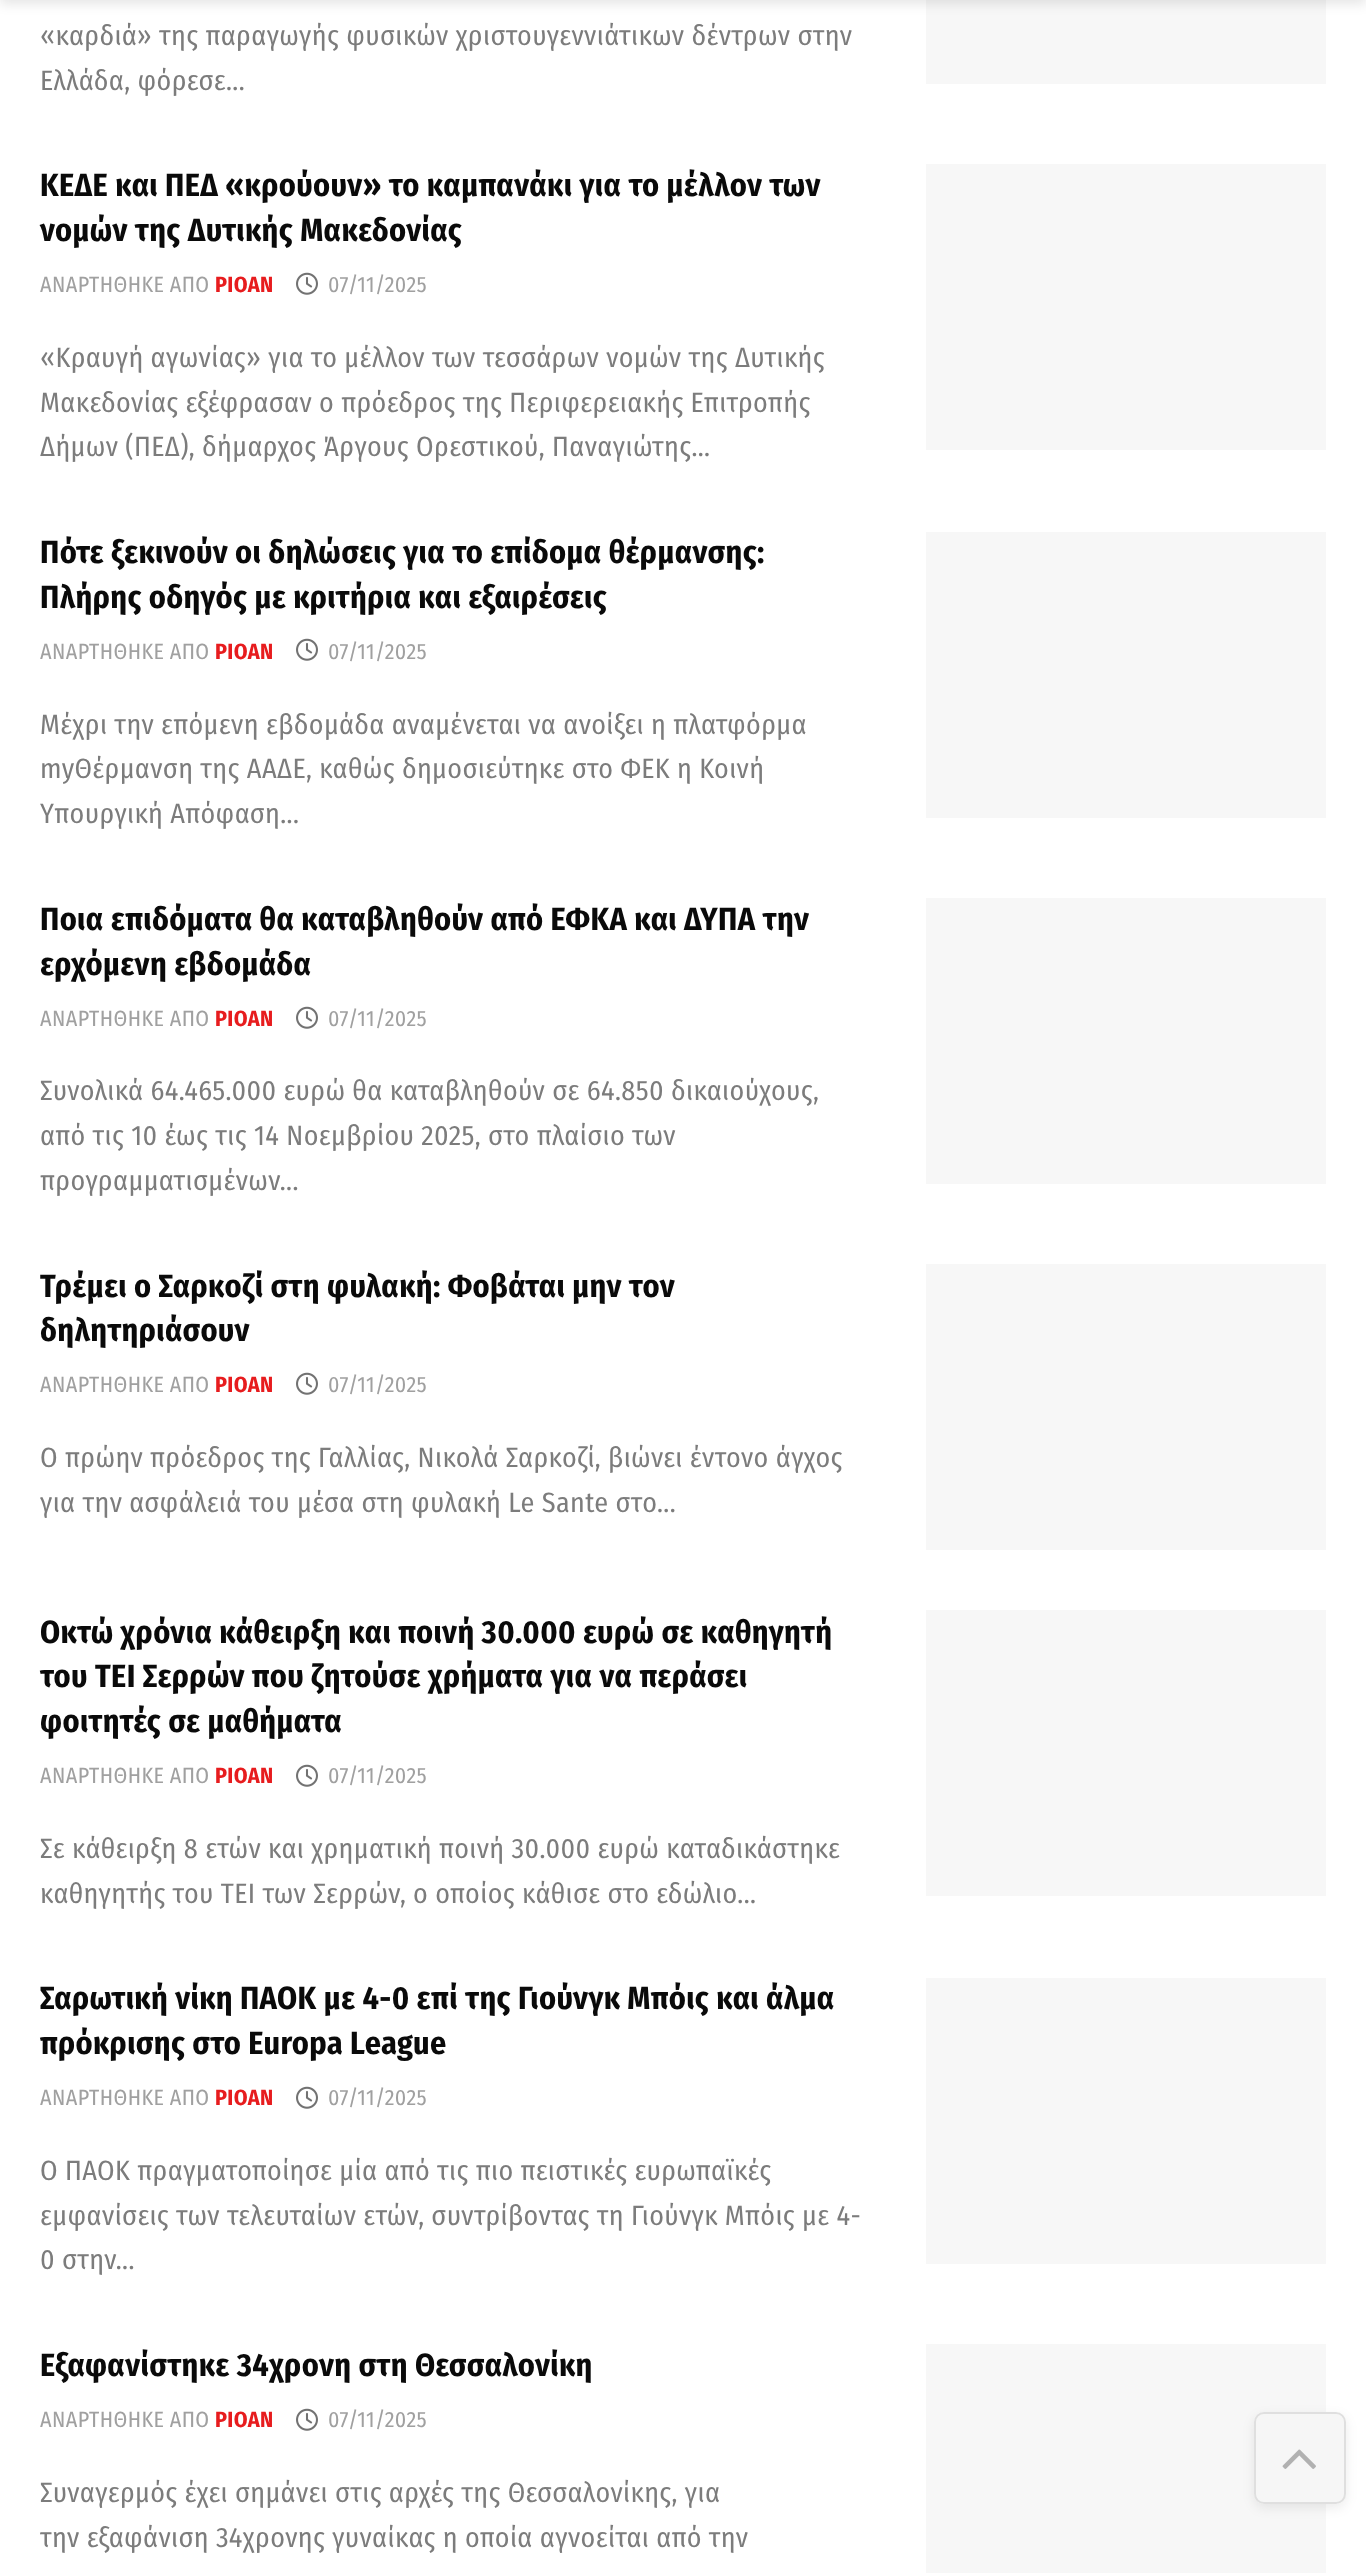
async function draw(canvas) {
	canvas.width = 1366;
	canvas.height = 2573;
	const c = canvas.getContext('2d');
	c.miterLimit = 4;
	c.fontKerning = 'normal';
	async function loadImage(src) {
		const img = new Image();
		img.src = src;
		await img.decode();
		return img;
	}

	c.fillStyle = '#fff';
	c.fillRect(0, 0, 1366, 2573);
	c.fillStyle = '#f7f7f7';
	c.fillRect(926, 0, 400, 84);
	c.fillStyle = '#0000001a';
	c.filter = 'blur(6px)';
	c.beginPath();
	c.rect(0, -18, 1366, 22);
	c.fill();
	c.filter = 'none';
	c.letterSpacing = '0.4px';
	c.font = '28px Fira Sans Condensed';
	c.fillStyle = '#7c7c7c';
	c.fillText('«καρδιά» της παραγωγής φυσικών χριστουγεννιάτικων δέντρων στην', 40, 45);
	c.fillText('Ελλάδα, φόρεσε...', 40, 90);
	c.font = 'bold 32px Fira Sans Condensed';
	c.fillStyle = '#0a0a0a';
	c.fillText('ΚΕΔΕ και ΠΕΔ «κρούουν» το καμπανάκι για το μέλλον των', 40, 196);
	c.fillText('νομών της Δυτικής Μακεδονίας', 40, 241);
	c.font = '22px Fira Sans Condensed';
	c.fillStyle = '#a0a0a0';
	c.fillText('ΑΝΑΡΤΗΘΗΚΕ ΑΠΟ', 40, 292);
	c.font = 'bold 22px Fira Sans Condensed';
	c.fillStyle = '#e71c1e';
	c.fillText('PIOAN', 215, 292);
	c.drawImage(await loadImage('img1.png'), 296, 272, 22, 23);
	c.font = '22px Fira Sans Condensed';
	c.fillStyle = '#a0a0a0';
	c.fillText('07/11/2025', 328, 292);
	c.font = '28px Fira Sans Condensed';
	c.fillStyle = '#7c7c7c';
	for (const [text, x, y] of [
		['«Κραυγή αγωνίας» για το μέλλον των τεσσάρων νομών της Δυτικής', 40, 367],
		['Μακεδονίας εξέφρασαν ο πρόεδρος της Περιφερειακής Επιτροπής', 40, 412],
		['Δήμων (ΠΕΔ), δήμαρχος Άργους Ορεστικού, Παναγιώτης...', 40, 456],
	]) {
		c.fillText(text, x, y);
	}
	c.fillStyle = '#f7f7f7';
	c.fillRect(926, 164, 400, 286);
	c.font = 'bold 32px Fira Sans Condensed';
	c.fillStyle = '#0a0a0a';
	c.fillText('Πότε ξεκινούν οι δηλώσεις για το επίδομα θέρμανσης:', 40, 563);
	c.fillText('Πλήρης οδηγός με κριτήρια και εξαιρέσεις', 40, 608);
	c.font = '22px Fira Sans Condensed';
	c.fillStyle = '#a0a0a0';
	c.fillText('ΑΝΑΡΤΗΘΗΚΕ ΑΠΟ', 40, 659);
	c.font = 'bold 22px Fira Sans Condensed';
	c.fillStyle = '#e71c1e';
	c.fillText('PIOAN', 215, 659);
	c.drawImage(await loadImage('img1.png'), 296, 638, 22, 23);
	c.font = '22px Fira Sans Condensed';
	c.fillStyle = '#a0a0a0';
	c.fillText('07/11/2025', 328, 659);
	c.font = '28px Fira Sans Condensed';
	c.fillStyle = '#7c7c7c';
	for (const [text, x, y] of [
		['Μέχρι την επόμενη εβδομάδα αναμένεται να ανοίξει η πλατφόρμα', 40, 734],
		['myΘέρμανση της ΑΑΔΕ, καθώς δημοσιεύτηκε στο ΦΕΚ η Κοινή', 40, 778],
		['Υπουργική Απόφαση...', 40, 823],
	]) {
		c.fillText(text, x, y);
	}
	c.fillStyle = '#f7f7f7';
	c.fillRect(926, 532, 400, 286);
	c.font = 'bold 32px Fira Sans Condensed';
	c.fillStyle = '#0a0a0a';
	c.fillText('Ποια επιδόματα θα καταβληθούν από ΕΦΚΑ και ΔΥΠΑ την', 40, 930);
	c.fillText('ερχόμενη εβδομάδα', 40, 975);
	c.font = '22px Fira Sans Condensed';
	c.fillStyle = '#a0a0a0';
	c.fillText('ΑΝΑΡΤΗΘΗΚΕ ΑΠΟ', 40, 1026);
	c.font = 'bold 22px Fira Sans Condensed';
	c.fillStyle = '#e71c1e';
	c.fillText('PIOAN', 215, 1026);
	c.drawImage(await loadImage('img1.png'), 296, 1006, 22, 23);
	c.font = '22px Fira Sans Condensed';
	c.fillStyle = '#a0a0a0';
	c.fillText('07/11/2025', 328, 1026);
	c.font = '28px Fira Sans Condensed';
	c.fillStyle = '#7c7c7c';
	for (const [text, x, y] of [
		['Συνολικά 64.465.000 ευρώ θα καταβληθούν σε 64.850 δικαιούχους,', 40, 1100],
		['από τις 10 έως τις 14 Νοεμβρίου 2025, στο πλαίσιο των', 40, 1145],
		['προγραμματισμένων...', 40, 1190],
	]) {
		c.fillText(text, x, y);
	}
	c.fillStyle = '#f7f7f7';
	c.fillRect(926, 898, 400, 286);
	c.font = 'bold 32px Fira Sans Condensed';
	c.fillStyle = '#0a0a0a';
	c.fillText('Τρέμει ο Σαρκοζί στη φυλακή: Φοβάται μην τον', 40, 1297);
	c.fillText('δηλητηριάσουν', 40, 1341);
	c.font = '22px Fira Sans Condensed';
	c.fillStyle = '#a0a0a0';
	c.fillText('ΑΝΑΡΤΗΘΗΚΕ ΑΠΟ', 40, 1392);
	c.font = 'bold 22px Fira Sans Condensed';
	c.fillStyle = '#e71c1e';
	c.fillText('PIOAN', 215, 1392);
	c.drawImage(await loadImage('img1.png'), 296, 1372, 22, 23);
	c.font = '22px Fira Sans Condensed';
	c.fillStyle = '#a0a0a0';
	c.fillText('07/11/2025', 328, 1392);
	c.font = '28px Fira Sans Condensed';
	c.fillStyle = '#7c7c7c';
	c.fillText('Ο πρώην πρόεδρος της Γαλλίας, Νικολά Σαρκοζί, βιώνει έντονο άγχος', 40, 1467);
	c.fillText('για την ασφάλειά του μέσα στη φυλακή Le Sante στο...', 40, 1512);
	c.fillStyle = '#f7f7f7';
	c.fillRect(926, 1264, 400, 286);
	c.font = 'bold 32px Fira Sans Condensed';
	c.fillStyle = '#0a0a0a';
	for (const [text, x, y] of [
		['Οκτώ χρόνια κάθειρξη και ποινή 30.000 ευρώ σε καθηγητή', 40, 1643],
		['του ΤΕΙ Σερρών που ζητούσε χρήματα για να περάσει', 40, 1687],
		['φοιτητές σε μαθήματα', 40, 1732],
	]) {
		c.fillText(text, x, y);
	}
	c.font = '22px Fira Sans Condensed';
	c.fillStyle = '#a0a0a0';
	c.fillText('ΑΝΑΡΤΗΘΗΚΕ ΑΠΟ', 40, 1783);
	c.font = 'bold 22px Fira Sans Condensed';
	c.fillStyle = '#e71c1e';
	c.fillText('PIOAN', 215, 1783);
	c.drawImage(await loadImage('img1.png'), 296, 1764, 22, 23);
	c.font = '22px Fira Sans Condensed';
	c.fillStyle = '#a0a0a0';
	c.fillText('07/11/2025', 328, 1783);
	c.font = '28px Fira Sans Condensed';
	c.fillStyle = '#7c7c7c';
	c.fillText('Σε κάθειρξη 8 ετών και χρηματική ποινή 30.000 ευρώ καταδικάστηκε', 40, 1858);
	c.fillText('καθηγητής του ΤΕΙ των Σερρών, ο οποίος κάθισε στο εδώλιο...', 40, 1903);
	c.fillStyle = '#f7f7f7';
	c.fillRect(926, 1610, 400, 286);
	c.font = 'bold 32px Fira Sans Condensed';
	c.fillStyle = '#0a0a0a';
	c.fillText('Σαρωτική νίκη ΠΑΟΚ με 4-0 επί της Γιούνγκ Μπόις και άλμα', 40, 2009);
	c.fillText('πρόκρισης στο Europa League', 40, 2054);
	c.font = '22px Fira Sans Condensed';
	c.fillStyle = '#a0a0a0';
	c.fillText('ΑΝΑΡΤΗΘΗΚΕ ΑΠΟ', 40, 2105);
	c.font = 'bold 22px Fira Sans Condensed';
	c.fillStyle = '#e71c1e';
	c.fillText('PIOAN', 215, 2105);
	c.drawImage(await loadImage('img1.png'), 296, 2086, 22, 23);
	c.font = '22px Fira Sans Condensed';
	c.fillStyle = '#a0a0a0';
	c.fillText('07/11/2025', 328, 2105);
	c.font = '28px Fira Sans Condensed';
	c.fillStyle = '#7c7c7c';
	for (const [text, x, y] of [
		['Ο ΠΑΟΚ πραγματοποίησε μία από τις πιο πειστικές ευρωπαϊκές', 40, 2180],
		['εμφανίσεις των τελευταίων ετών, συντρίβοντας τη Γιούνγκ Μπόις με 4-', 40, 2225],
		['0 στην...', 40, 2269],
	]) {
		c.fillText(text, x, y);
	}
	c.fillStyle = '#f7f7f7';
	c.fillRect(926, 1978, 400, 286);
	c.font = 'bold 32px Fira Sans Condensed';
	c.fillStyle = '#0a0a0a';
	c.fillText('Εξαφανίστηκε 34χρονη στη Θεσσαλονίκη', 40, 2376);
	c.font = '22px Fira Sans Condensed';
	c.fillStyle = '#a0a0a0';
	c.fillText('ΑΝΑΡΤΗΘΗΚΕ ΑΠΟ', 40, 2427);
	c.font = 'bold 22px Fira Sans Condensed';
	c.fillStyle = '#e71c1e';
	c.fillText('PIOAN', 215, 2427);
	c.drawImage(await loadImage('img1.png'), 296, 2408, 22, 23);
	c.font = '22px Fira Sans Condensed';
	c.fillStyle = '#a0a0a0';
	c.fillText('07/11/2025', 328, 2427);
	c.font = '28px Fira Sans Condensed';
	c.fillStyle = '#7c7c7c';
	c.fillText('Συναγερμός έχει σημάνει στις αρχές της Θεσσαλονίκης, για', 40, 2502);
	c.fillText('την εξαφάνιση 34χρονης γυναίκας η οποία αγνοείται από την', 40, 2547);
	c.fillStyle = '#f7f7f7';
	c.fillRect(926, 2344, 400, 229);
	c.fillStyle = '#fff';
	c.beginPath();
	c.roundRect(1254, 2412, 92, 92, 10);
	c.fill();
	c.save();
	c.beginPath();
	c.moveTo(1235, 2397);
	c.lineTo(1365, 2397);
	c.lineTo(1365, 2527);
	c.lineTo(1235, 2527);
	c.closePath();
	c.moveTo(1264, 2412);
	c.lineTo(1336, 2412);
	c.bezierCurveTo(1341.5, 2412, 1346, 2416.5, 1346, 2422);
	c.lineTo(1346, 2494);
	c.bezierCurveTo(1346, 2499.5, 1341.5, 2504, 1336, 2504);
	c.lineTo(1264, 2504);
	c.bezierCurveTo(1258.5, 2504, 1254, 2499.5, 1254, 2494);
	c.lineTo(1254, 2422);
	c.bezierCurveTo(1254, 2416.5, 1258.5, 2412, 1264, 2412);
	c.closePath();
	c.clip('evenodd');
	c.fillStyle = '#00000014';
	c.filter = 'blur(6px)';
	c.beginPath();
	c.roundRect(1254, 2416, 92, 92, 10);
	c.fill();
	c.filter = 'none';
	c.restore();
	c.fillStyle = '#b5b5b51f';
	c.beginPath();
	c.roundRect(1254, 2412, 92, 92, 10);
	c.fill();
	c.beginPath();
	c.roundRect(1255, 2413, 90, 90, 9);
	c.strokeStyle = '#00000017';
	c.lineWidth = 2;
	c.stroke();
	c.drawImage(await loadImage('img2.png'), 1282, 2449, 34, 20);
}

draw(document.querySelector('canvas'));
